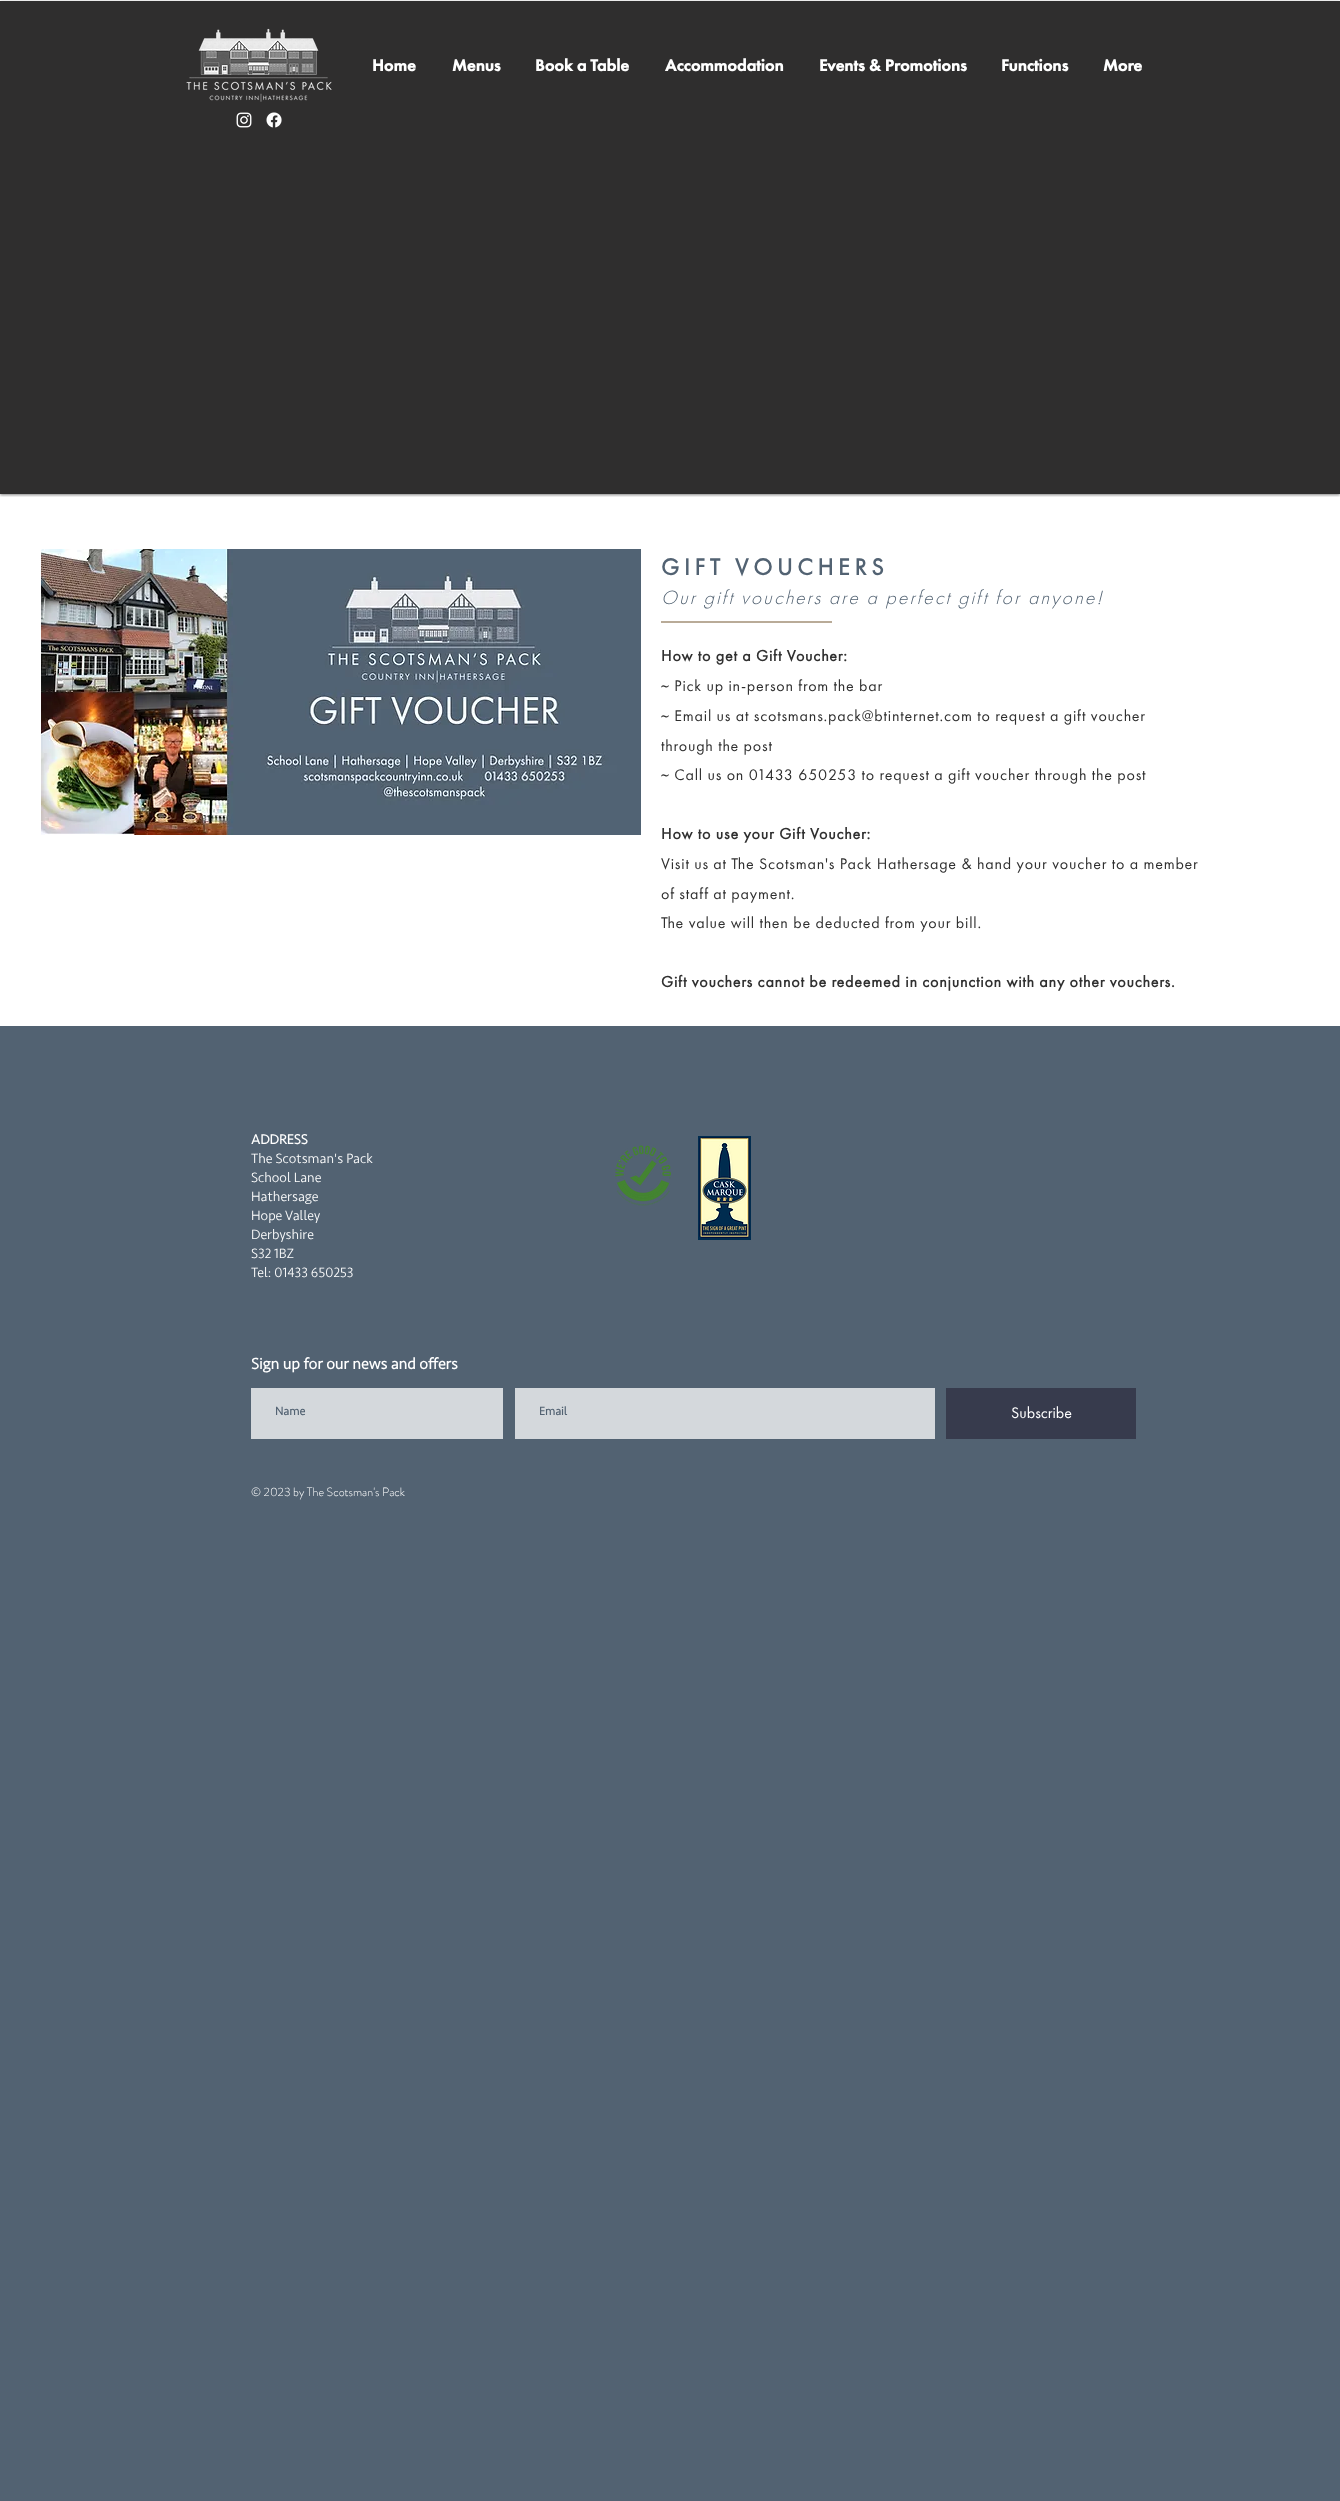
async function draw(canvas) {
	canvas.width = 1340;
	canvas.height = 2501;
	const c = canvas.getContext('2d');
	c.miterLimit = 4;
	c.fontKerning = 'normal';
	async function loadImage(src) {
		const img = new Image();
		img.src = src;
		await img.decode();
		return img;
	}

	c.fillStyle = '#526272';
	c.fillRect(0, 0, 1340, 2501);
	c.fillStyle = '#fff';
	c.fillRect(0, 0, 1340, 497);
	c.fillStyle = '#00000080';
	c.filter = 'blur(1.5px)';
	c.beginPath();
	c.rect(0, 2, 1340, 493);
	c.fill();
	c.filter = 'none';
	c.fillStyle = '#2f2e2e';
	c.fillRect(0, 1, 1340, 493);
	c.drawImage(await loadImage('img1.png'), 186, 28, 146, 74);
	c.font = 'bold 17px Futura PT';
	c.fillStyle = '#fff';
	for (const [text, x, y] of [
		['Home', 372, 71],
		['Menus', 452, 71],
		['Book a Table', 535, 71],
		['Accommodation', 665, 71],
		['Events & Promotions', 819, 71],
		['Functions', 1001, 71],
		['More', 1103, 71],
	]) {
		c.fillText(text, x, y);
	}
	c.drawImage(await loadImage('img2.png'), 236, 112, 16, 16);
	c.drawImage(await loadImage('img3.png'), 266, 112, 16, 16);
	c.fillRect(0, 497, 1340, 529);
	c.drawImage(await loadImage('img4.png'), 41, 549, 600, 286);
	c.letterSpacing = '4.75px';
	c.font = 'bold 24px "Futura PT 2"';
	c.fillStyle = '#526272';
	c.fillText('GIFT VOUCHERS', 661, 575);
	c.letterSpacing = '2px';
	c.font = 'italic 300 20px Futura PT';
	c.fillText('Our gift vouchers are a perfect gift for anyone!', 661, 604);
	c.fillStyle = '#b9ab98';
	c.fillRect(661, 621, 171, 2);
	c.letterSpacing = '0.8px';
	c.font = 'bold 16px "Futura PT 2"';
	c.fillStyle = '#303030';
	c.fillText('How to get a Gift Voucher:', 661, 661);
	c.font = '16px Futura PT';
	for (const [text, x, y] of [
		['~ Pick up in-person from the bar', 661, 691],
		['~ Email us at scotsmans.pack@btinternet.com to request a gift voucher', 661, 721],
		['through the post', 661, 751],
		['~ Call us on 01433 650253 to request a gift voucher through the post', 661, 780],
	]) {
		c.fillText(text, x, y);
	}
	c.font = 'bold 16px "Futura PT 2"';
	c.fillText('How to use your Gift Voucher:', 661, 839);
	c.font = '16px Futura PT';
	for (const [text, x, y] of [
		['Visit us at The Scotsman\'s Pack Hathersage & hand your voucher to a member', 661, 869],
		['of staff at payment.', 661, 899],
		['The value will then be deducted from your bill.', 661, 928],
	]) {
		c.fillText(text, x, y);
	}
	c.font = 'bold 16px "Futura PT 2"';
	c.fillText('Gift vouchers cannot be redeemed in conjunction with any other vouchers.', 661, 987);
	c.letterSpacing = '0px';
	c.font = 'bold 14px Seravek';
	c.fillStyle = '#fff';
	c.fillText('ADDRESS', 251, 1144);
	c.font = '300 14px Seravek';
	for (const [text, x, y] of [
		['The Scotsman\'s Pack', 251, 1163],
		['School Lane', 251, 1182],
		['Hathersage', 251, 1201],
		['Hope Valley', 251, 1220],
		['Derbyshire', 251, 1239],
		['S32 1BZ', 251, 1258],
		['Tel: 01433 650253', 251, 1277],
	]) {
		c.fillText(text, x, y);
	}
	c.drawImage(await loadImage('img5.png'), 615, 1145, 56, 61);
	c.drawImage(await loadImage('img6.png'), 698, 1136, 53, 104);
	c.font = 'bold 16px Seravek';
	c.fillText('Sign up for our news and offers', 251, 1369);
	c.fillStyle = '#d4d8dc';
	c.fillRect(251, 1388, 252, 51);
	c.font = 'bold 12px Seravek';
	c.fillStyle = '#526272';
	c.fillText('Name', 275, 1415);
	c.fillStyle = '#d4d8dc';
	c.fillRect(515, 1388, 420, 51);
	c.fillStyle = '#526272';
	c.fillText('Email', 539, 1415);
	c.fillStyle = '#373b4d';
	c.fillRect(946, 1388, 190, 51);
	c.font = '16px Futura PT';
	c.fillStyle = '#fff';
	c.fillText('Subscribe', 1011, 1418);
	c.font = '300 12px "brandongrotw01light"';
	c.fillText('© 2023 by The Scotsman\'s Pack', 251, 1496);
}

draw(document.querySelector('canvas'));
